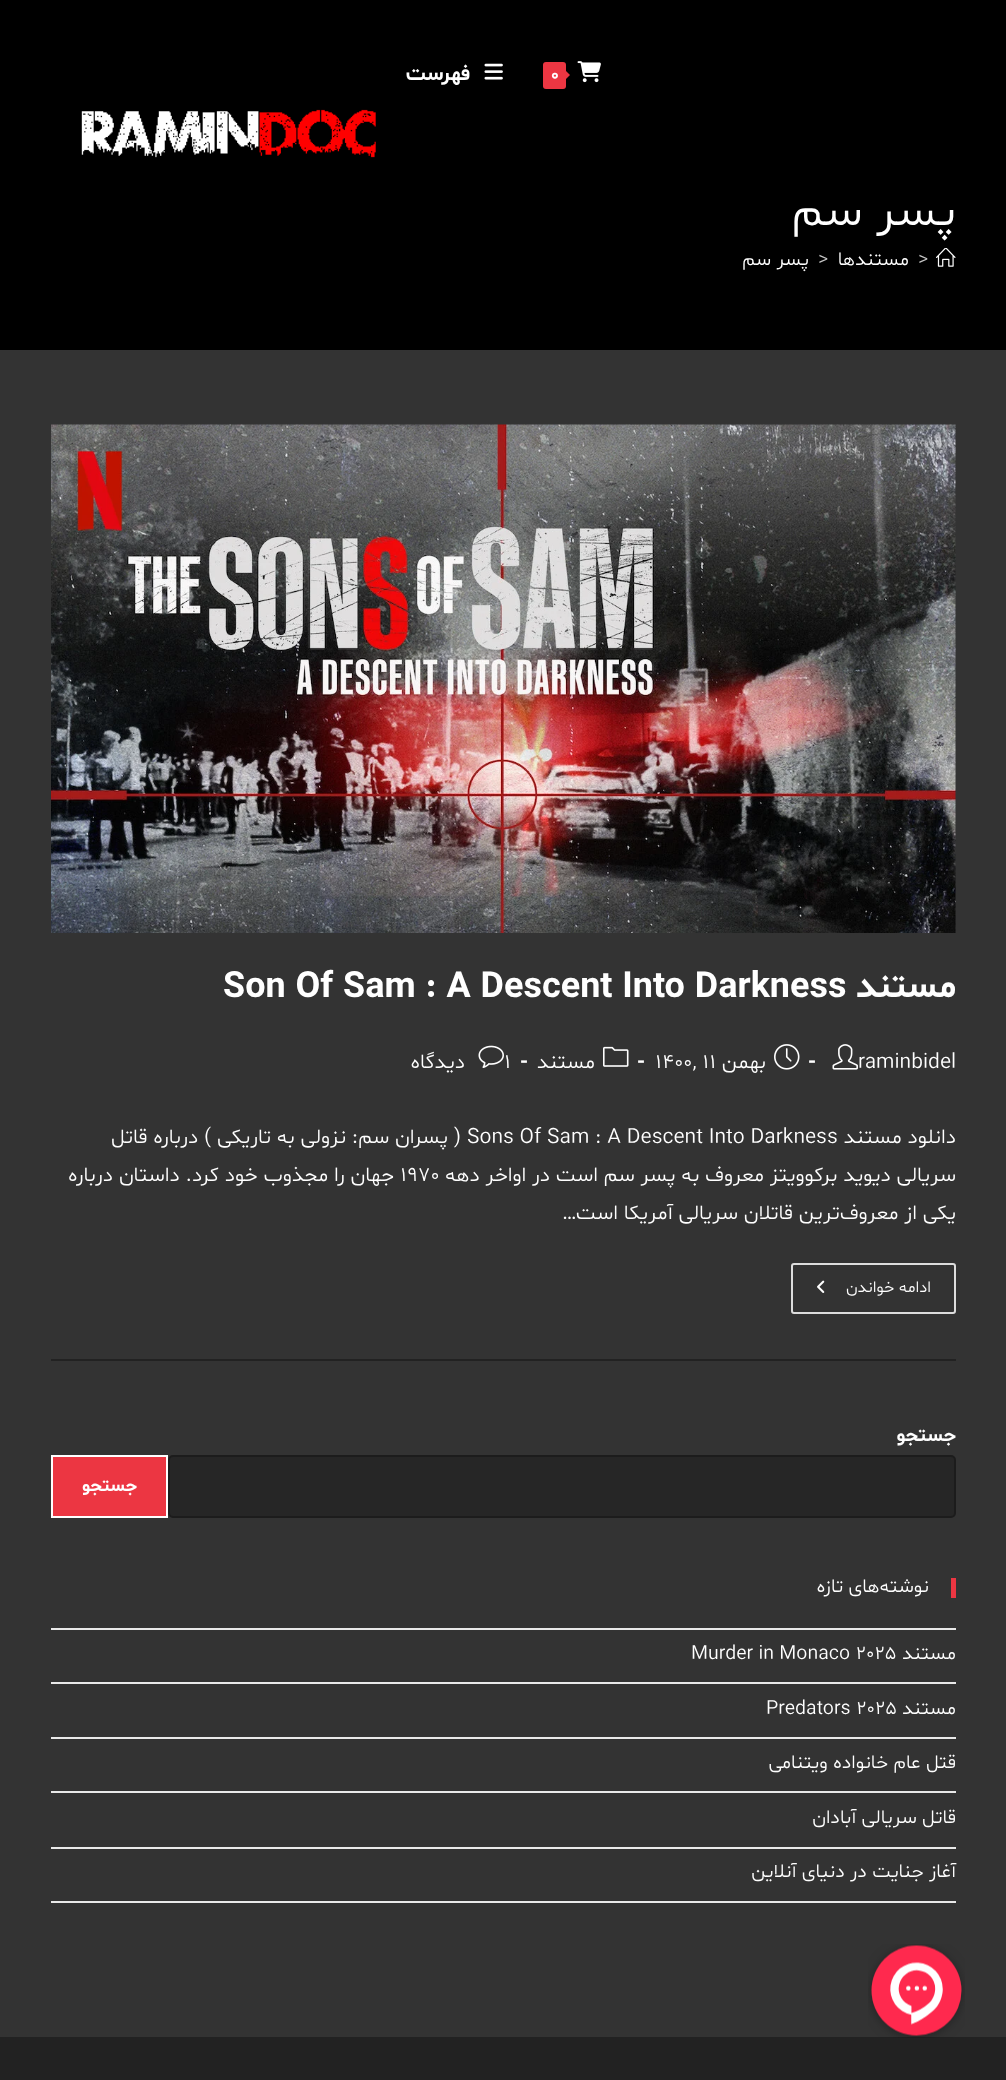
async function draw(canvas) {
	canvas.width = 1006;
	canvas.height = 2080;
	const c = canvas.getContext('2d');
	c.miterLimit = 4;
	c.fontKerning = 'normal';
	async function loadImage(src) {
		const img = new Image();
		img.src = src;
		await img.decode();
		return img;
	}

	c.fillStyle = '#333';
	c.fillRect(0, 0, 1006, 2080);
	c.fillStyle = '#000';
	c.fillRect(0, 0, 1006, 350);
	c.drawImage(await loadImage('img1.png'), 577, 61, 24, 22);
	c.fillStyle = '#ec3642';
	c.beginPath();
	c.roundRect(543, 62, 23, 27, 3);
	c.fill();
	c.beginPath();
	c.moveTo(562.5, 82.5);
	c.lineTo(562.5, 67.5);
	c.lineTo(570, 75);
	c.closePath();
	c.fill();
	c.font = 'bold 18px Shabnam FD';
	c.fillStyle = '#fff';
	c.fillText('0', 551, 80);
	c.drawImage(await loadImage('img2.png'), 484, 63, 19, 17);
	c.direction = 'rtl';
	c.font = 'bold 21px Shabnam FD';
	c.fillText('فهرست', 470, 80);
	c.drawImage(await loadImage('img3.png'), 81, 109, 295, 49);
	c.font = '300 48px Shabnam FD';
	c.fillText('پسر سم', 956, 225);
	c.drawImage(await loadImage('img4.png'), 936, 248, 20, 19);
	c.direction = 'ltr';
	c.font = '300 19.5px Shabnam FD';
	c.fillStyle = '#c6c6c6';
	c.fillText('>', 918, 265);
	c.direction = 'rtl';
	c.fillStyle = '#fff';
	c.fillText('مستندها', 909, 265);
	c.direction = 'ltr';
	c.fillStyle = '#c6c6c6';
	c.fillText('>', 818, 265);
	c.direction = 'rtl';
	c.fillStyle = '#fff';
	c.fillText('پسر سم', 809, 265);
	c.fillStyle = '#222';
	c.fillRect(51, 1359, 905, 2);
	c.drawImage(await loadImage('img5.png'), 51, 424, 905, 509);
	c.font = 'bold 36px Shabnam FD';
	c.fillStyle = '#fff';
	c.fillText('مستند', 956, 997);
	c.direction = 'ltr';
	c.fillText('Son Of Sam : A Descent Into Darkness', 223, 997);
	c.font = '300 21px Shabnam FD';
	c.fillText('raminbidel', 858, 1068);
	c.drawImage(await loadImage('img6.png'), 832, 1044, 26, 26);
	c.font = 'bold 21px Shabnam FD';
	c.fillText('-', 808, 1068);
	c.drawImage(await loadImage('img7.png'), 774, 1044, 26, 26);
	c.direction = 'rtl';
	c.font = '300 21px Shabnam FD';
	c.fillText('بهمن', 766, 1068);
	c.direction = 'ltr';
	c.fillText('1400, 11', 655, 1068);
	c.font = 'bold 21px Shabnam FD';
	c.fillText('-', 637, 1068);
	c.drawImage(await loadImage('img8.png'), 603, 1046, 26, 21);
	c.direction = 'rtl';
	c.font = '300 21px Shabnam FD';
	c.fillText('مستند', 595, 1068);
	c.direction = 'ltr';
	c.font = 'bold 21px Shabnam FD';
	c.fillText('-', 520, 1068);
	c.font = '300 21px Shabnam FD';
	c.fillText('1', 504, 1068);
	c.drawImage(await loadImage('img9.png'), 478, 1045, 26, 23);
	c.direction = 'rtl';
	c.fillText('دیدگاه', 465, 1068);
	c.fillText('دانلود مستند', 956, 1143);
	c.direction = 'ltr';
	c.fillText('Sons Of Sam : A Descent Into Darkness', 467, 1143);
	c.direction = 'rtl';
	c.fillText('( پسران سم: نزولی به تاریکی ) درباره قاتل', 461, 1143);
	c.fillText('سریالی دیوید برکوویتز معروف به پسر سم است در اواخر دهه', 956, 1181);
	c.direction = 'ltr';
	c.fillText('1970', 400, 1181);
	c.direction = 'rtl';
	c.fillText('جهان را مجذوب خود کرد. داستان درباره', 394, 1181);
	c.fillText('یکی از معروف‌ترین قاتلان سریالی آمریکا است…', 956, 1219);
	c.beginPath();
	c.roundRect(792, 1264, 163, 49, 2);
	c.strokeStyle = '#ddd';
	c.lineWidth = 2;
	c.stroke();
	c.font = '300 16.5px Shabnam FD';
	c.fillText('ادامه خواندن', 931, 1292);
	c.drawImage(await loadImage('img10.png'), 817, 1280, 8, 13);
	c.font = 'bold 19.5px Shabnam FD';
	c.fillText('جستجو', 956, 1441);
	c.fillStyle = '#262626';
	c.beginPath();
	c.roundRect(169, 1456, 786, 61, 4);
	c.fill();
	c.strokeStyle = '#1c1c1c';
	c.stroke();
	c.fillStyle = '#ec3642';
	c.beginPath();
	c.rect(52, 1456, 115, 61);
	c.fill();
	c.strokeStyle = '#fff';
	c.stroke();
	c.font = 'bold 18px Shabnam FD';
	c.fillStyle = '#fff';
	c.fillText('جستجو', 137, 1491);
	c.fillStyle = '#ec3642';
	c.fillRect(951, 1578, 5, 20);
	c.font = '300 19.5px Shabnam FD';
	c.fillStyle = '#fff';
	c.fillText('نوشته‌های تازه', 929, 1592);
	c.fillStyle = '#e9e9e9';
	c.fillRect(51, 1628, 905, 2);
	c.fillRect(51, 1682, 905, 2);
	c.fillStyle = '#fff';
	c.fillText('مستند', 956, 1659);
	c.direction = 'ltr';
	c.fillText('Murder in Monaco 2025', 691, 1659);
	c.fillStyle = '#e9e9e9';
	c.fillRect(51, 1737, 905, 2);
	c.direction = 'rtl';
	c.fillStyle = '#fff';
	c.fillText('مستند', 956, 1714);
	c.direction = 'ltr';
	c.fillText('Predators 2025', 766, 1714);
	c.fillStyle = '#e9e9e9';
	c.fillRect(51, 1791, 905, 2);
	c.direction = 'rtl';
	c.fillStyle = '#fff';
	c.fillText('قتل عام خانواده ویتنامی', 956, 1768);
	c.fillStyle = '#e9e9e9';
	c.fillRect(51, 1847, 905, 2);
	c.fillStyle = '#fff';
	c.fillText('قاتل سریالی آبادان', 956, 1823);
	c.fillStyle = '#e9e9e9';
	c.fillRect(51, 1901, 905, 2);
	c.fillStyle = '#fff';
	c.fillText('آغاز جنایت در دنیای آنلاین', 956, 1877);
	c.fillStyle = '#222';
	c.fillRect(0, 2037, 1006, 43);
	c.drawImage(await loadImage('img11.png'), 868, 1944, 97, 94);
}

draw(document.querySelector('canvas'));
